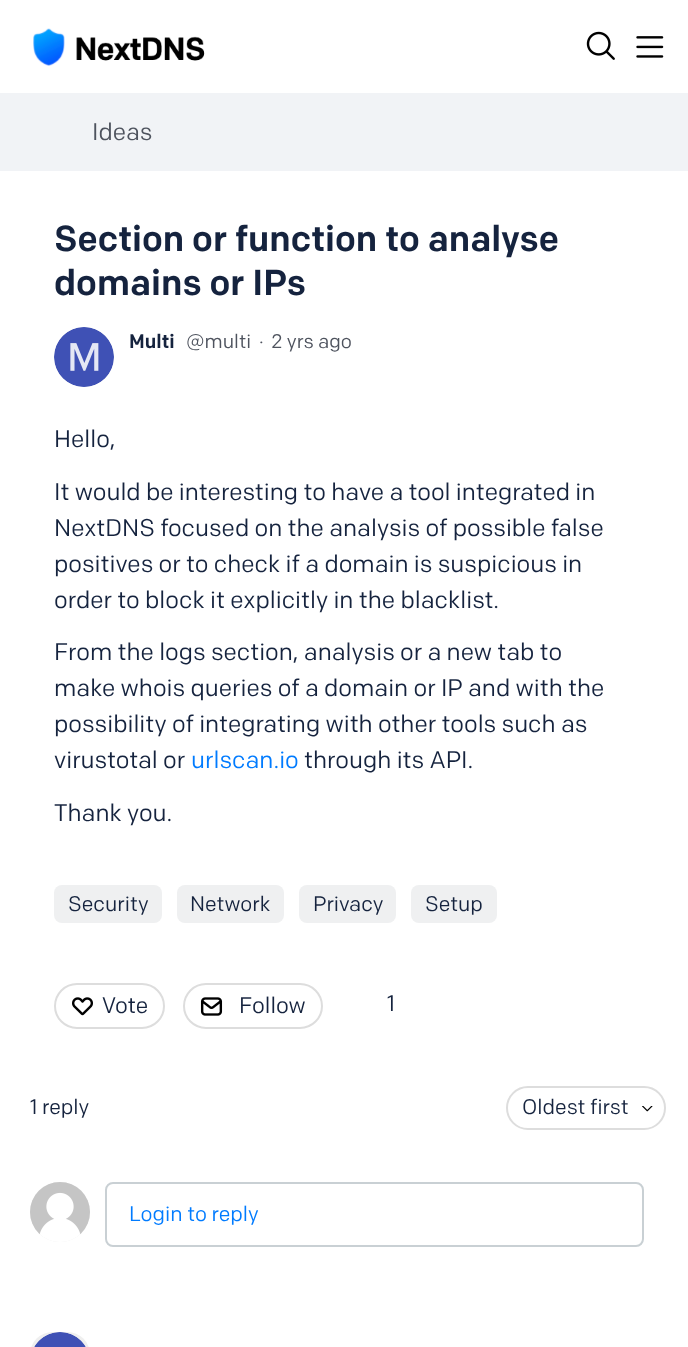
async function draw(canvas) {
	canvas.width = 688;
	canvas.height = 1347;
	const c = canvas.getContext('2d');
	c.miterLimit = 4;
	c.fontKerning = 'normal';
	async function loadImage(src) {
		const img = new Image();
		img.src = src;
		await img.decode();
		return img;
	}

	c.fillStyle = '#f1f3f6';
	c.fillRect(0, 0, 688, 1347);
	c.fillStyle = '#fff';
	c.fillRect(0, 0, 688, 93);
	c.drawImage(await loadImage('img1.png'), 33, 28, 172, 38);
	c.drawImage(await loadImage('img2.png'), 586, 31, 29, 29);
	c.drawImage(await loadImage('img3.png'), 636, 36, 28, 22);
	c.font = '24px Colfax';
	c.fillStyle = '#4e535e';
	c.fillText('Ideas', 92, 140);
	c.fillStyle = '#fff';
	c.fillRect(0, 171, 688, 1176);
	c.font = '500 36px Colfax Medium';
	c.fillStyle = '#15233e';
	c.fillText('Section or function to analyse', 54, 251);
	c.fillText('domains or IPs', 54, 295);
	c.fillStyle = '#efefef';
	c.beginPath();
	c.arc(84, 357, 30, 0, 2 * Math.PI);
	c.fill();
	c.drawImage(await loadImage('img4.png'), 54, 327, 60, 60);
	c.font = '500 19.5px Colfax Medium';
	c.fillStyle = '#15233e';
	c.fillText('Multi', 129, 348);
	c.font = '19.5px Colfax';
	c.fillStyle = '#4e535e';
	for (const [text, x, y] of [
		['@multi', 186, 348],
		['·', 259, 348],
		['2 yrs ago', 271, 348],
	]) {
		c.fillText(text, x, y);
	}
	c.font = '24px Colfax';
	c.fillStyle = '#15233e';
	for (const [text, x, y] of [
		['Hello,', 54, 447],
		['It would be interesting to have a tool integrated in', 54, 500],
		['NextDNS focused on the analysis of possible false', 54, 536],
		['positives or to check if a domain is suspicious in', 54, 572],
		['order to block it explicitly in the blacklist.', 54, 608],
		['From the logs section, analysis or a new tab to', 54, 660],
		['make whois queries of a domain or IP and with the', 54, 696],
		['possibility of integrating with other tools such as', 54, 732],
		['virustotal or', 54, 768],
	]) {
		c.fillText(text, x, y);
	}
	c.fillStyle = '#007bff';
	c.fillText('urlscan.io', 191, 768);
	c.fillStyle = '#15233e';
	c.fillText('through its API.', 304, 768);
	c.fillText('Thank you.', 54, 821);
	c.fillStyle = '#eff0f1';
	c.beginPath();
	c.roundRect(54, 885, 108, 38, 8);
	c.fill();
	c.font = '21px Colfax';
	c.fillStyle = '#15233e';
	c.fillText('Security', 68, 911);
	c.fillStyle = '#eff0f1';
	c.beginPath();
	c.roundRect(177, 885, 107, 38, 8);
	c.fill();
	c.fillStyle = '#15233e';
	c.fillText('Network', 190, 911);
	c.fillStyle = '#eff0f1';
	c.beginPath();
	c.roundRect(299, 885, 97, 38, 8);
	c.fill();
	c.fillStyle = '#15233e';
	c.fillText('Privacy', 313, 911);
	c.fillStyle = '#eff0f1';
	c.beginPath();
	c.roundRect(411, 885, 86, 38, 8);
	c.fill();
	c.fillStyle = '#15233e';
	c.fillText('Setup', 425, 911);
	c.beginPath();
	c.roundRect(55, 984, 109, 44, 22);
	c.strokeStyle = '#ddd';
	c.lineWidth = 2;
	c.stroke();
	c.drawImage(await loadImage('img5.png'), 72, 997, 21, 19);
	c.font = '22.5px Colfax';
	c.fillText('Vote', 102, 1013);
	c.beginPath();
	c.roundRect(184, 984, 138, 44, 22);
	c.stroke();
	c.drawImage(await loadImage('img6.png'), 200, 997, 23, 19);
	c.fillText('Follow', 239, 1013);
	c.fillText('1', 387, 1011);
	c.font = '21px Colfax';
	c.fillText('1 reply', 30, 1114);
	c.beginPath();
	c.roundRect(507, 1087, 158, 42, 21);
	c.stroke();
	c.fillText('Oldest first', 522, 1114);
	c.drawImage(await loadImage('img7.png'), 642, 1106, 11, 6);
	c.fillStyle = '#efefef';
	c.beginPath();
	c.arc(60, 1212, 30, 0, 2 * Math.PI);
	c.fill();
	c.drawImage(await loadImage('img8.png'), 30, 1182, 60, 60);
	c.beginPath();
	c.roundRect(106, 1183, 537, 63, 7);
	c.strokeStyle = '#c9d0d4';
	c.stroke();
	c.fillStyle = '#007bff';
	c.fillText('Login to reply', 129, 1221);
	c.fillStyle = '#efefef';
	c.beginPath();
	c.roundRect(30, 1332, 60, 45, 30);
	c.fill();
	c.drawImage(await loadImage('img9.png'), 34, 1332, 52, 15);
}

draw(document.querySelector('canvas'));
